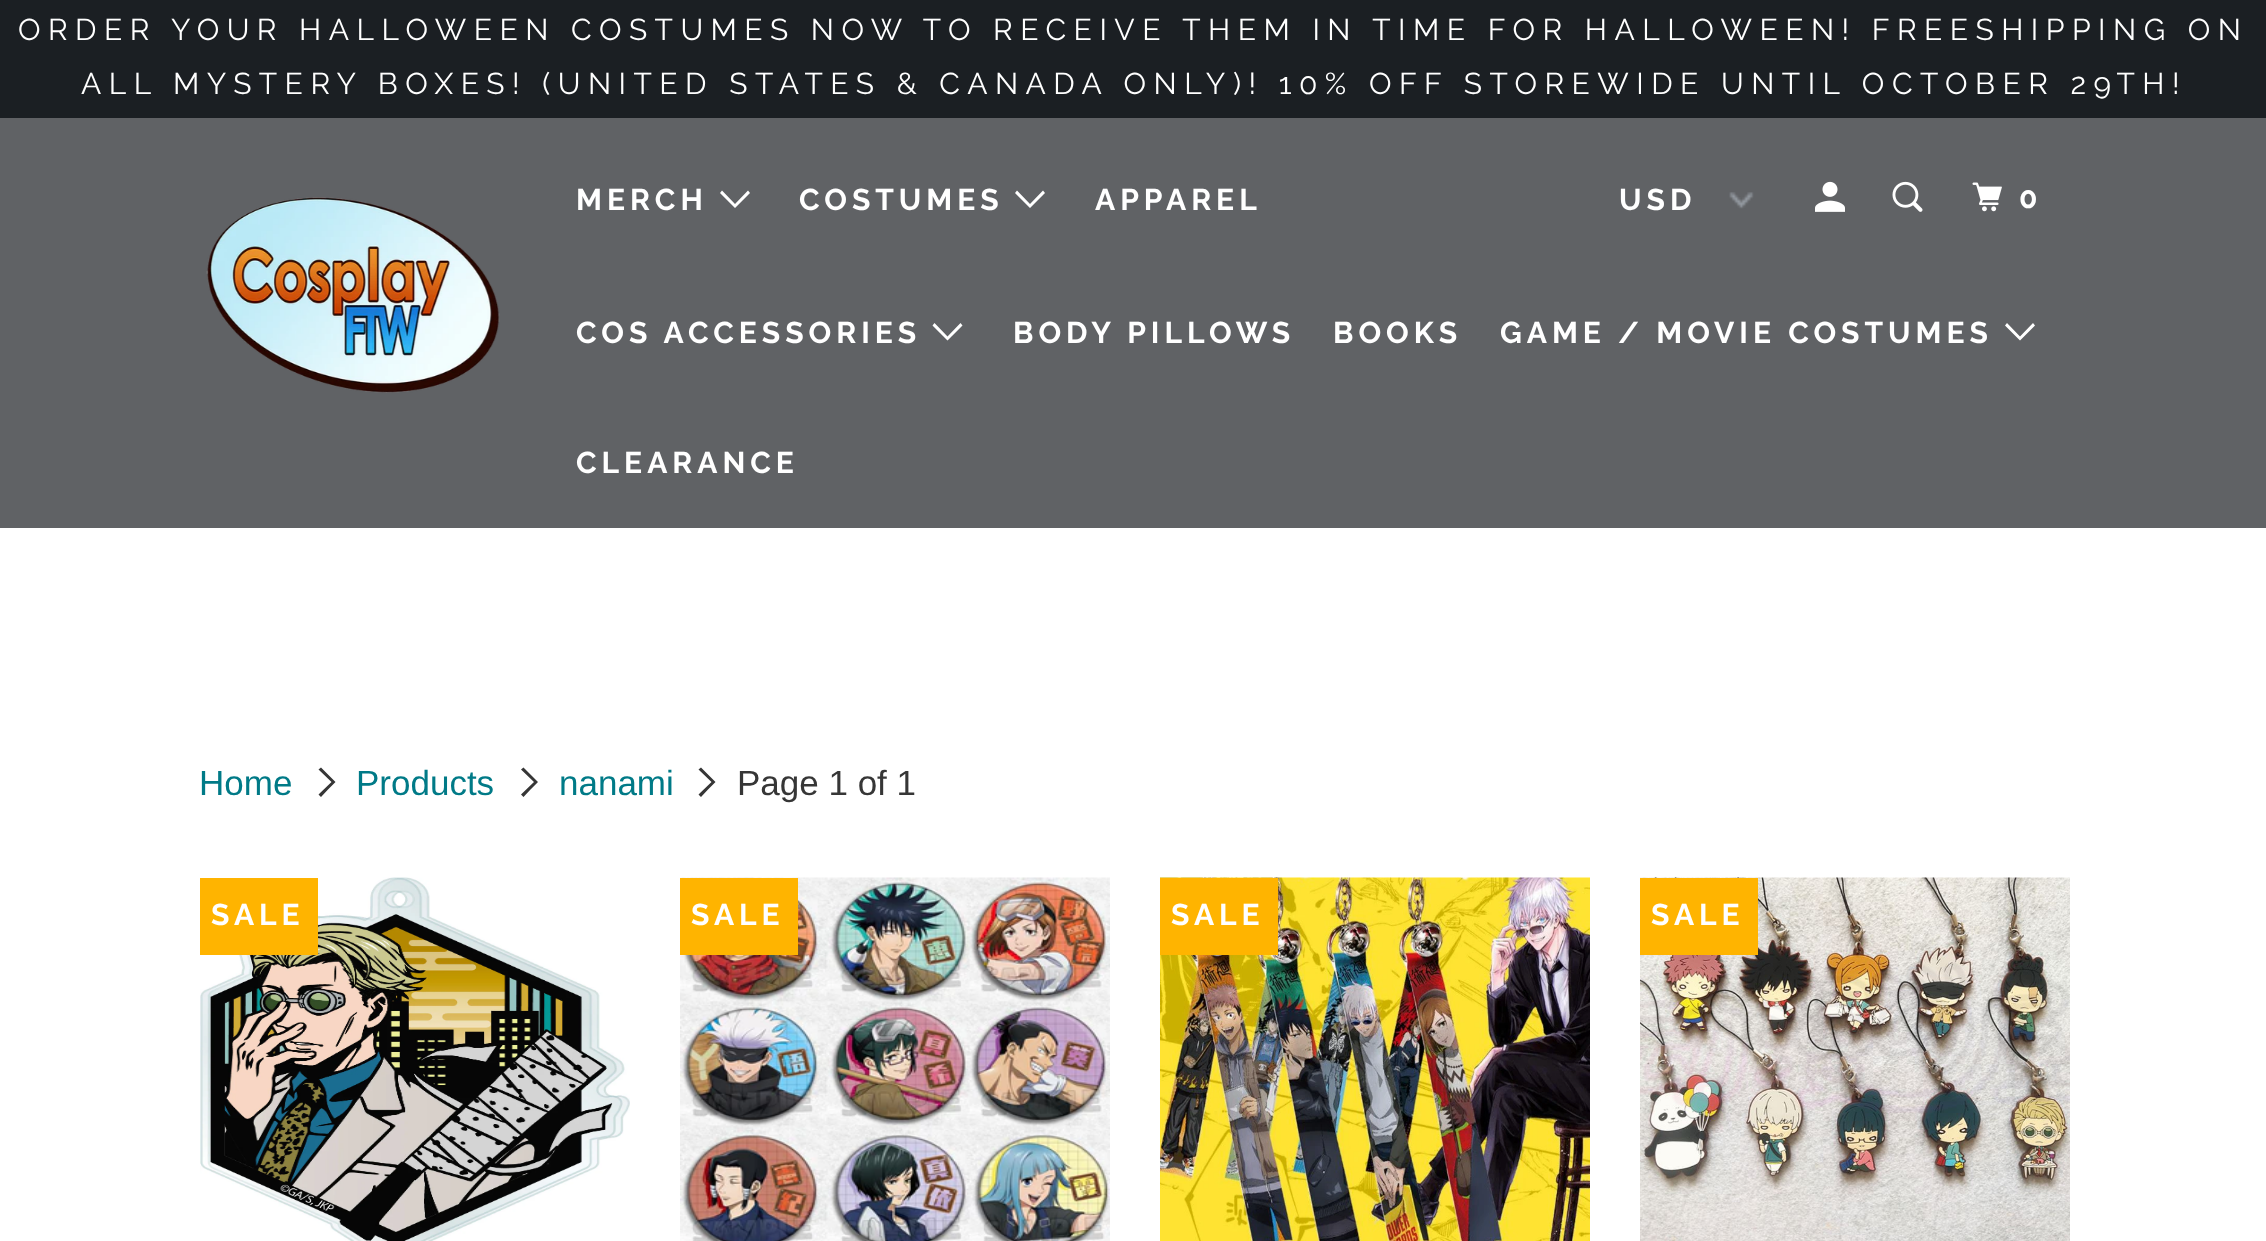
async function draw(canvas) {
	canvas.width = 2266;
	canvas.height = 1241;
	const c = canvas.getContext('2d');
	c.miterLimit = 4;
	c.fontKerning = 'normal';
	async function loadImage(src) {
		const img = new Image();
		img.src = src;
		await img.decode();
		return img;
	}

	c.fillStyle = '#fff';
	c.fillRect(0, 0, 2266, 1241);
	c.fillStyle = '#1b1f23';
	c.fillRect(0, 0, 2266, 118);
	c.letterSpacing = '7.5px';
	c.font = '30px Raleway';
	c.fillStyle = '#fff';
	c.fillText('ORDER YOUR HALLOWEEN COSTUMES NOW TO RECEIVE THEM IN TIME FOR HALLOWEEN! FREESHIPPING ON', 18, 40);
	c.fillText('ALL MYSTERY BOXES! (UNITED STATES & CANADA ONLY)! 10% OFF STOREWIDE UNTIL OCTOBER 29TH!', 81, 94);
	c.fillStyle = '#606265';
	c.fillRect(0, 118, 2266, 410);
	c.drawImage(await loadImage('img1.png'), 206, 197, 294, 196);
	c.letterSpacing = '5px';
	c.font = 'bold 30px Raleway';
	c.fillStyle = '#fff';
	c.fillText('MERCH', 576, 210);
	c.beginPath();
	c.moveTo(727.5, 200.5);
	c.lineTo(720, 193);
	c.lineTo(722, 190.5);
	c.lineTo(735, 204);
	c.lineTo(748, 190.5);
	c.lineTo(750, 193);
	c.lineTo(735, 208);
	c.closePath();
	c.fill();
	c.fillText('COSTUMES', 799, 210);
	c.beginPath();
	c.moveTo(1022.5, 200.5);
	c.lineTo(1015, 193);
	c.lineTo(1017, 190.5);
	c.lineTo(1030, 204);
	c.lineTo(1043, 190.5);
	c.lineTo(1045, 193);
	c.lineTo(1030, 208);
	c.closePath();
	c.fill();
	c.fillText('APPAREL', 1095, 210);
	c.fillText('COS ACCESSORIES', 576, 343);
	c.beginPath();
	c.moveTo(940, 333);
	c.lineTo(932.5, 325.5);
	c.lineTo(934.5, 323);
	c.lineTo(947.5, 336.5);
	c.lineTo(960.5, 323);
	c.lineTo(962.5, 325.5);
	c.lineTo(947.5, 340.5);
	c.closePath();
	c.fill();
	for (const [text, x, y] of [
		['BODY PILLOWS', 1013, 343],
		['BOOKS', 1333, 343],
		['GAME / MOVIE COSTUMES', 1500, 343],
	]) {
		c.fillText(text, x, y);
	}
	c.beginPath();
	c.moveTo(2012.5, 333);
	c.lineTo(2005, 325.5);
	c.lineTo(2007, 323);
	c.lineTo(2020, 336.5);
	c.lineTo(2033, 323);
	c.lineTo(2035, 325.5);
	c.lineTo(2020, 340.5);
	c.closePath();
	c.fill();
	c.fillText('CLEARANCE', 576, 473);
	c.drawImage(await loadImage('img2.png'), 1729, 192, 25, 17);
	c.fillText('USD', 1619, 210);
	c.drawImage(await loadImage('img3.png'), 1815, 181, 30, 31);
	c.drawImage(await loadImage('img4.png'), 1892, 181, 31, 31);
	c.drawImage(await loadImage('img5.png'), 1972, 182, 30, 30);
	c.fillText('0', 2019, 208);
	c.letterSpacing = '0px';
	c.font = '35px Liberation Sans';
	c.fillStyle = '#007a87';
	c.fillText('Home', 199, 795);
	c.fillStyle = '#363636';
	c.beginPath();
	c.moveTo(328, 789.5);
	c.lineTo(321, 797);
	c.lineTo(318.5, 794.5);
	c.lineTo(331.5, 782);
	c.lineTo(318.5, 769.5);
	c.lineTo(321, 767.5);
	c.lineTo(335.5, 782);
	c.closePath();
	c.fill();
	c.fillStyle = '#007a87';
	c.fillText('Products', 356, 795);
	c.fillStyle = '#363636';
	c.beginPath();
	c.moveTo(530.5, 789.5);
	c.lineTo(523.5, 797);
	c.lineTo(521, 794.5);
	c.lineTo(534, 782);
	c.lineTo(521, 769.5);
	c.lineTo(523.5, 767.5);
	c.lineTo(538, 782);
	c.closePath();
	c.fill();
	c.fillStyle = '#007a87';
	c.fillText('nanami', 559, 795);
	c.fillStyle = '#363636';
	c.beginPath();
	c.moveTo(708, 789.5);
	c.lineTo(701, 797);
	c.lineTo(698.5, 794.5);
	c.lineTo(711.5, 782);
	c.lineTo(698.5, 769.5);
	c.lineTo(701, 767.5);
	c.lineTo(715.5, 782);
	c.closePath();
	c.fill();
	c.fillText('Page 1 of 1', 737, 795);
	c.drawImage(await loadImage('img6.png'), 200, 877, 430, 364);
	c.fillStyle = '#ffb400';
	c.fillRect(200, 878, 118, 77);
	c.letterSpacing = '5px';
	c.font = 'bold 30px Raleway';
	c.fillStyle = '#fff';
	c.fillText('SALE', 211, 925);
	c.drawImage(await loadImage('img7.png'), 680, 877, 430, 364);
	c.fillStyle = '#ffb400';
	c.fillRect(680, 878, 118, 77);
	c.fillStyle = '#fff';
	c.fillText('SALE', 691, 925);
	c.drawImage(await loadImage('img8.png'), 1160, 877, 430, 364);
	c.fillStyle = '#ffb400';
	c.fillRect(1160, 878, 118, 77);
	c.fillStyle = '#fff';
	c.fillText('SALE', 1171, 925);
	c.drawImage(await loadImage('img9.png'), 1640, 877, 430, 364);
	c.fillStyle = '#ffb400';
	c.fillRect(1640, 878, 118, 77);
	c.fillStyle = '#fff';
	c.fillText('SALE', 1651, 925);
}

draw(document.querySelector('canvas'));
